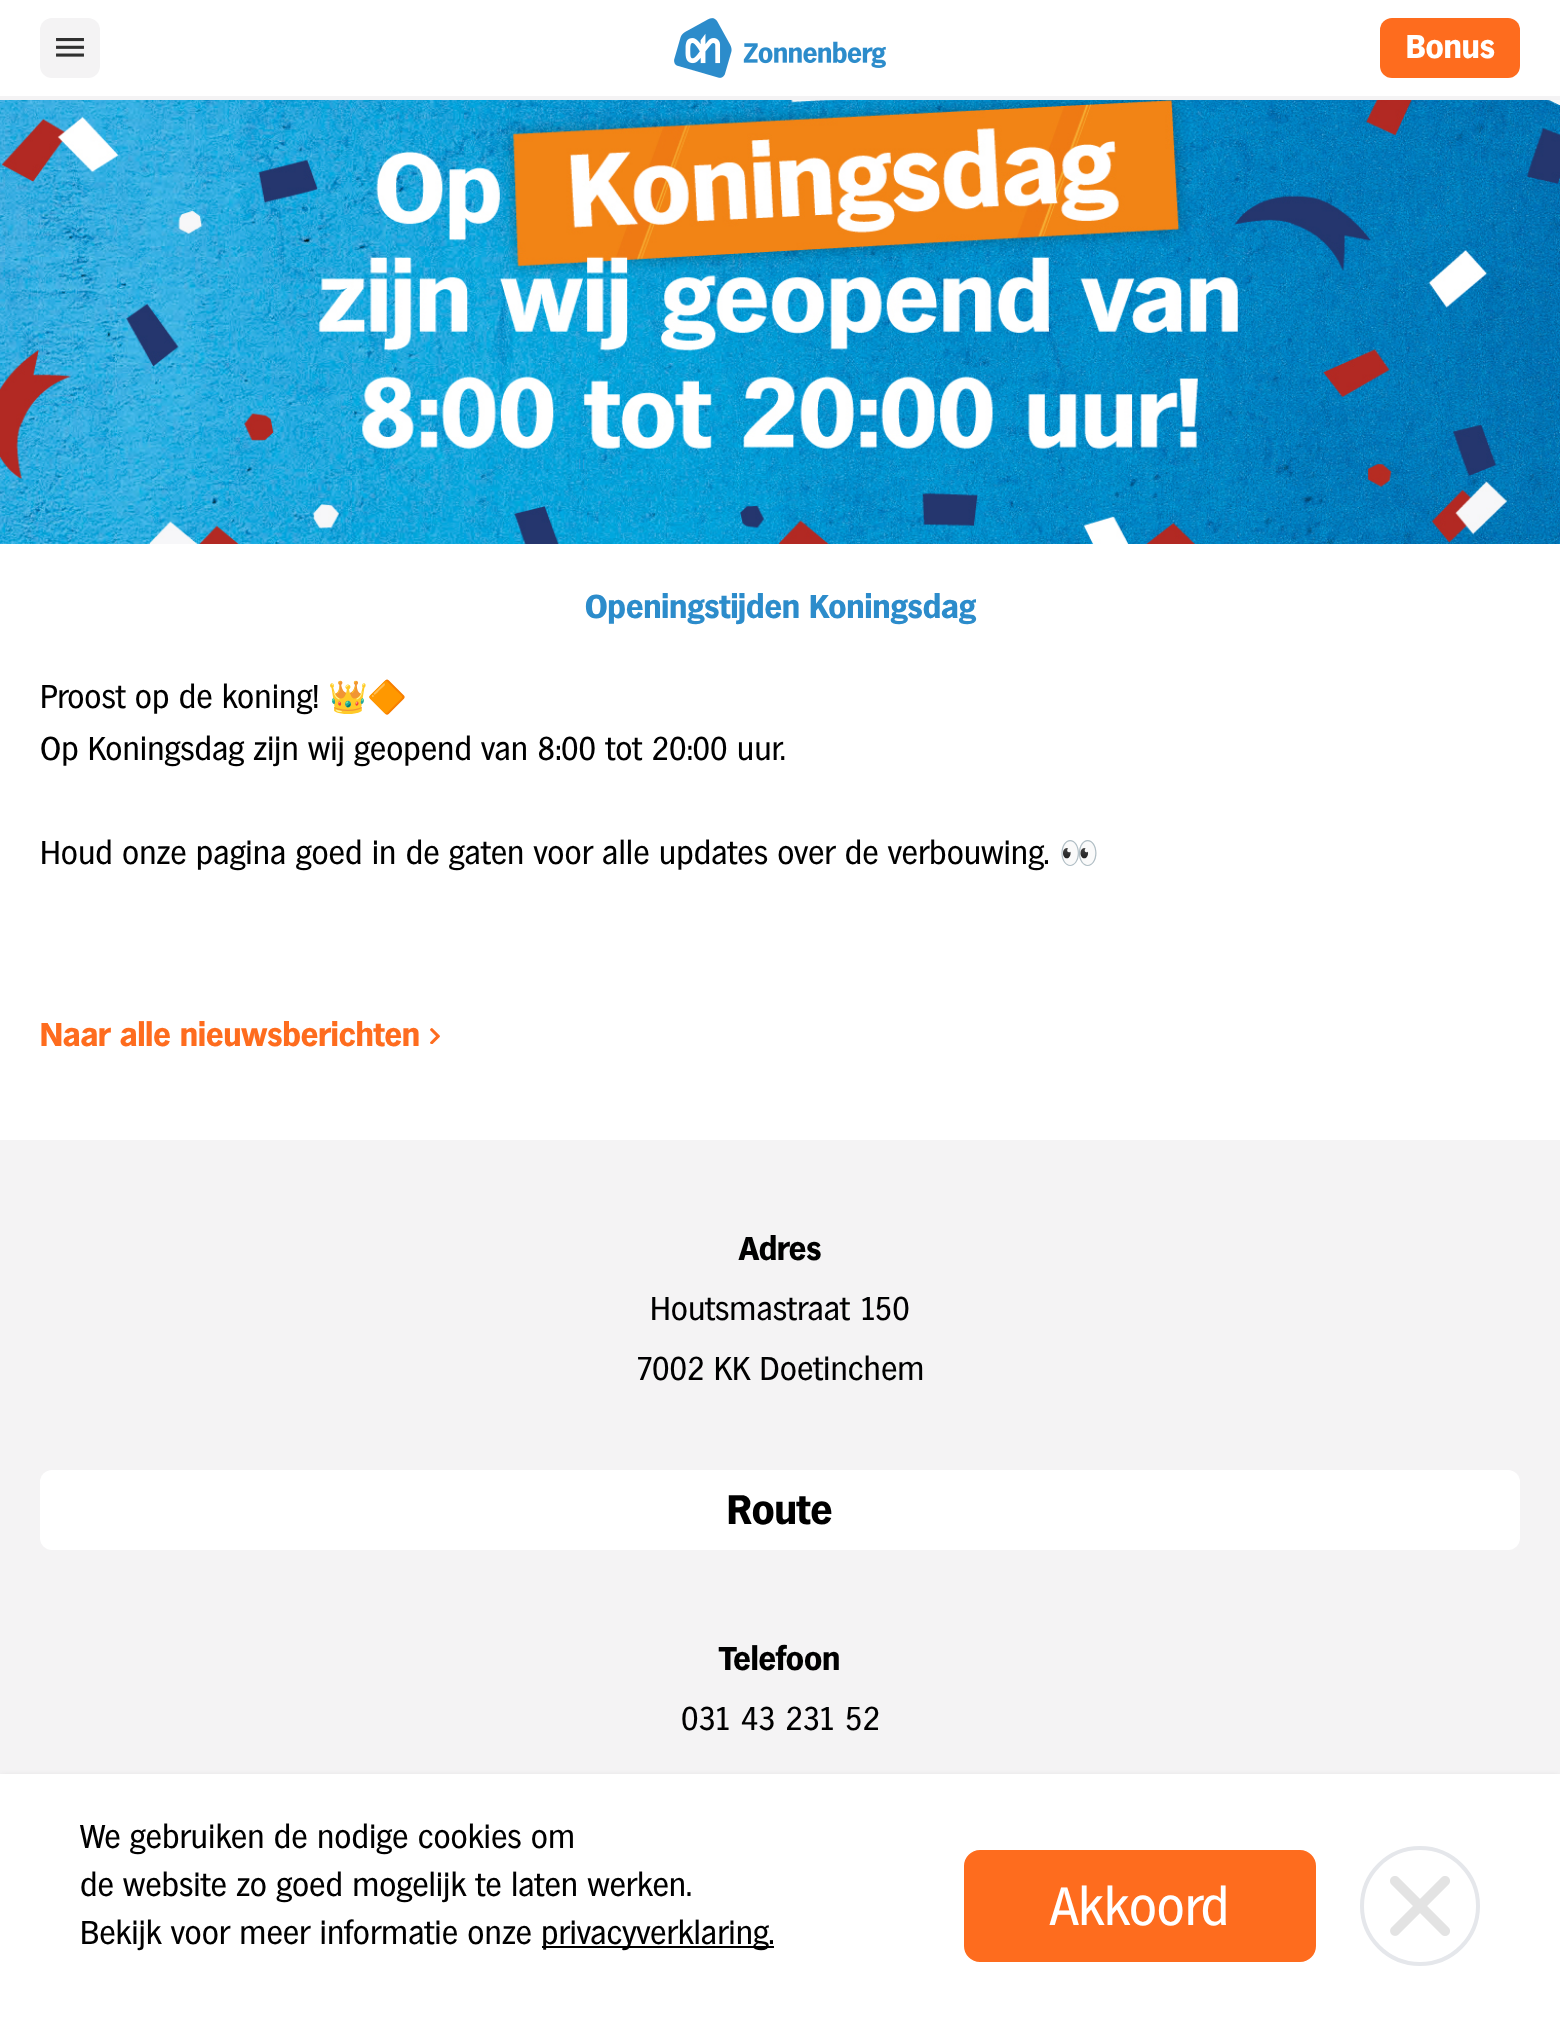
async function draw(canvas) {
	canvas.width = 1560;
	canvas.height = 2037;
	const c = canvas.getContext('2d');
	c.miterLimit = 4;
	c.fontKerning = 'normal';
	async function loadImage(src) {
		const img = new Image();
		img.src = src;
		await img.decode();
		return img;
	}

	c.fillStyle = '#fff';
	c.fillRect(0, 0, 1560, 2037);
	c.fillStyle = '#f4f3f4';
	c.fillRect(0, 96, 1560, 4);
	c.beginPath();
	c.roundRect(40, 18, 60, 60, 12);
	c.fill();
	c.drawImage(await loadImage('img1.png'), 56, 38, 28, 19);
	c.drawImage(await loadImage('img2.png'), 674, 18, 212, 60);
	c.fillStyle = '#fe6c1e';
	c.beginPath();
	c.roundRect(1380, 18, 140, 60, 12);
	c.fill();
	c.font = 'bold 32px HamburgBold';
	c.fillStyle = '#fff';
	c.fillText('Bonus', 1406, 58);
	c.drawImage(await loadImage('img3.png'), 0, 100, 1560, 444);
	c.fillStyle = '#2c8ccb';
	c.fillText('Openingstijden Koningsdag', 585, 618);
	c.font = '32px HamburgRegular';
	c.fillStyle = '#000';
	c.fillText('Proost op de koning!', 40, 708);
	c.font = '32px Noto Color Emoji';
	c.fillText('👑🔶', 328, 708);
	c.font = '32px HamburgRegular';
	c.fillText('Op Koningsdag zijn wij geopend van 8:00 tot 20:00 uur.', 40, 760);
	c.fillText('Houd onze pagina goed in de gaten voor alle updates over de verbouwing.', 40, 864);
	c.font = '32px Noto Color Emoji';
	c.fillText('👀', 1059, 864);
	c.font = 'bold 32px HamburgBold';
	c.fillStyle = '#fe6c1e';
	c.fillText('Naar alle nieuwsberichten', 40, 1046);
	c.drawImage(await loadImage('img4.png'), 430, 1028, 10, 16);
	c.fillStyle = '#f4f3f4';
	c.fillRect(0, 1140, 1560, 634);
	c.fillStyle = '#000';
	c.fillText('Adres', 739, 1260);
	c.font = '32px HamburgRegular';
	c.fillText('Houtsmastraat 150', 650, 1320);
	c.fillText('7002 KK Doetinchem', 636, 1380);
	c.fillStyle = '#fff';
	c.beginPath();
	c.roundRect(40, 1470, 1480, 80, 12);
	c.fill();
	c.font = 'bold 40px HamburgBold';
	c.fillStyle = '#000';
	c.fillText('Route', 727, 1524);
	c.font = 'bold 32px HamburgBold';
	c.fillText('Telefoon', 719, 1670);
	c.font = '32px HamburgRegular';
	c.fillText('031 43 231 52', 681, 1730);
	c.fillStyle = '#0000001a';
	c.filter = 'blur(3px)';
	c.beginPath();
	c.rect(0, 1776, 1560, 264);
	c.fill();
	c.filter = 'none';
	c.fillStyle = '#fff';
	c.fillRect(0, 1774, 1560, 263);
	c.fillStyle = '#000';
	for (const [text, x, y] of [
		['We gebruiken de nodige cookies om', 80, 1848],
		['de website zo goed mogelijk te laten werken.', 80, 1896],
		['Bekijk voor meer informatie onze', 80, 1944],
	]) {
		c.fillText(text, x, y);
	}
	c.fillRect(542, 1946, 232, 2);
	c.fillText('privacyverklaring.', 541, 1944);
	c.fillStyle = '#fe6c1e';
	c.beginPath();
	c.roundRect(962, 1848, 356, 116, 18);
	c.fill();
	c.strokeStyle = '#fff';
	c.lineWidth = 4;
	c.stroke();
	c.font = '52px HamburgRegular';
	c.fillStyle = '#fff';
	c.fillText('Akkoord', 1050, 1925);
	c.beginPath();
	c.arc(1420, 1906, 58, 0, 2 * Math.PI);
	c.strokeStyle = '#e5e7eb';
	c.stroke();
	c.drawImage(await loadImage('img5.png'), 1390, 1876, 60, 60);
}

draw(document.querySelector('canvas'));
